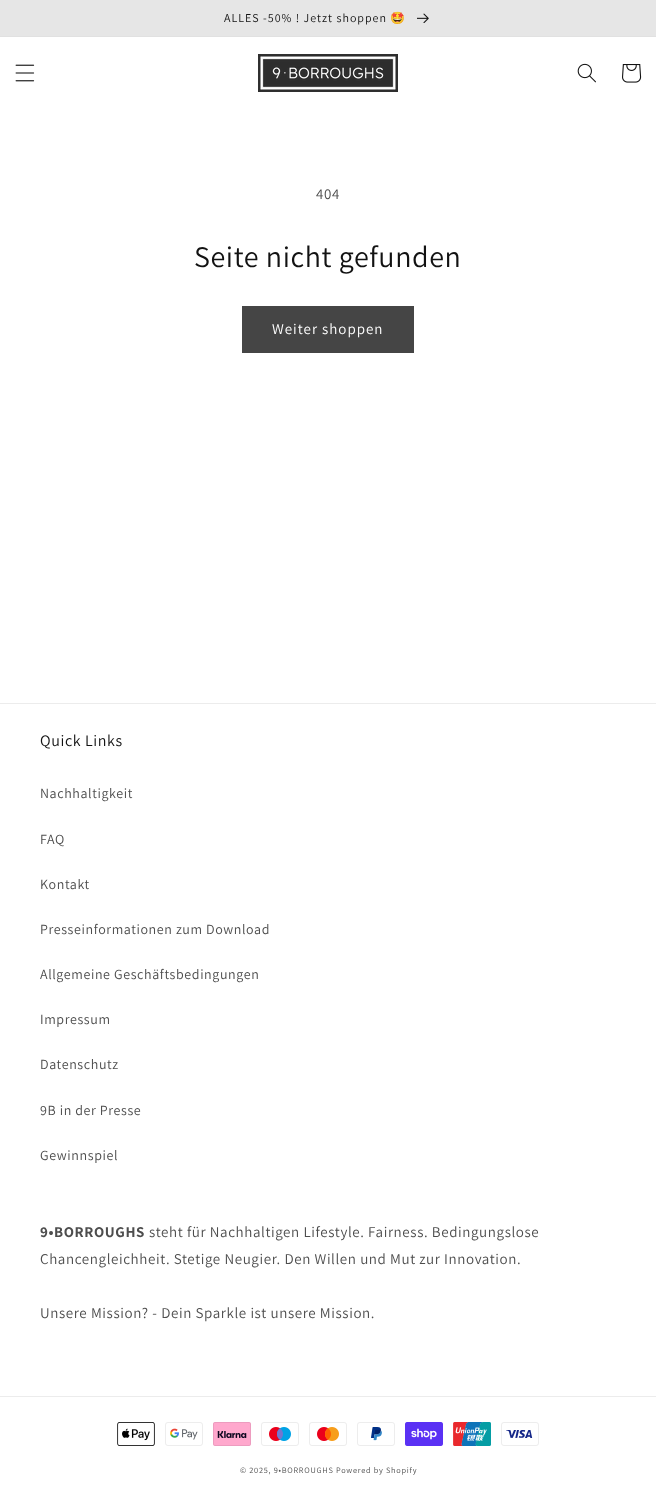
async function draw(canvas) {
	canvas.width = 656;
	canvas.height = 1505;
	const c = canvas.getContext('2d');
	c.miterLimit = 4;
	c.fontKerning = 'normal';
	async function loadImage(src) {
		const img = new Image();
		img.src = src;
		await img.decode();
		return img;
	}

	c.fillStyle = '#fff';
	c.fillRect(0, 0, 656, 1505);
	c.fillStyle = '#e1e1e1';
	c.fillRect(0, 36, 656, 1);
	c.fillStyle = '#e6e6e6';
	c.fillRect(0, 0, 656, 36);
	c.letterSpacing = '1px';
	c.font = '12px Assistant';
	c.fillStyle = '#121212';
	c.fillText('ALLES -50% ! Jetzt shoppen', 224, 22);
	c.font = '12px Noto Color Emoji';
	c.fillText('🤩', 390, 22);
	c.drawImage(await loadImage('img1.png'), 417, 13, 12, 10);
	c.drawImage(await loadImage('img2.png'), 15, 64, 20, 18);
	c.drawImage(await loadImage('img3.png'), 258, 54, 140, 38);
	c.drawImage(await loadImage('img4.png'), 577, 63, 19, 20);
	c.drawImage(await loadImage('img5.png'), 622, 64, 20, 19);
	c.letterSpacing = '0.6px';
	c.font = '15px Assistant';
	c.fillStyle = '#4d4d4d';
	c.fillText('404', 316, 199);
	c.font = '30px Assistant';
	c.fillStyle = '#121212';
	c.fillText('Seite nicht gefunden', 194, 267);
	c.fillStyle = '#454545';
	c.fillRect(242, 306, 172, 47);
	c.letterSpacing = '1px';
	c.font = '15px Assistant';
	c.fillStyle = '#fff';
	c.fillText('Weiter shoppen', 272, 334);
	c.fillStyle = '#ececec';
	c.fillRect(0, 703, 656, 1);
	c.letterSpacing = '0.6px';
	c.font = '16px Assistant';
	c.fillStyle = '#121212';
	c.fillText('Quick Links', 40, 746);
	c.font = '14px Assistant';
	c.fillStyle = '#4d4d4d';
	for (const [text, x, y] of [
		['Nachhaltigkeit', 40, 798],
		['FAQ', 40, 844],
		['Kontakt', 40, 889],
		['Presseinformationen zum Download', 40, 934],
		['Allgemeine Geschäftsbedingungen', 40, 979],
		['Impressum', 40, 1024],
		['Datenschutz', 40, 1069],
		['9B in der Presse', 40, 1115],
		['Gewinnspiel', 40, 1160],
	]) {
		c.fillText(text, x, y);
	}
	c.font = 'bold 15px Assistant';
	c.fillText('9•BORROUGHS', 40, 1237);
	c.font = '15px Assistant';
	for (const [text, x, y] of [
		['steht für Nachhaltigen Lifestyle. Fairness. Bedingungslose', 149, 1237],
		['Chancengleichheit. Stetige Neugier. Den Willen und Mut zur Innovation.', 40, 1264],
		['Unsere Mission? - Dein Sparkle ist unsere Mission.', 40, 1318],
	]) {
		c.fillText(text, x, y);
	}
	c.fillStyle = '#ececec';
	c.fillRect(0, 1396, 656, 1);
	c.drawImage(await loadImage('img6.png'), 117, 1422, 38, 24);
	c.drawImage(await loadImage('img7.png'), 165, 1422, 38, 24);
	c.drawImage(await loadImage('img8.png'), 213, 1422, 38, 24);
	c.drawImage(await loadImage('img9.png'), 261, 1422, 38, 24);
	c.drawImage(await loadImage('img10.png'), 309, 1422, 38, 24);
	c.drawImage(await loadImage('img11.png'), 357, 1422, 38, 24);
	c.drawImage(await loadImage('img12.png'), 405, 1422, 38, 24);
	c.drawImage(await loadImage('img13.png'), 453, 1422, 38, 24);
	c.drawImage(await loadImage('img14.png'), 501, 1422, 38, 24);
	c.letterSpacing = '0.75px';
	c.font = '8.25px Assistant';
	c.fillStyle = '#4d4d4d';
	c.fillText('© 2025, 9•BORROUGHS', 240, 1473);
	c.fillText('Powered by Shopify', 336, 1473);
}

draw(document.querySelector('canvas'));
